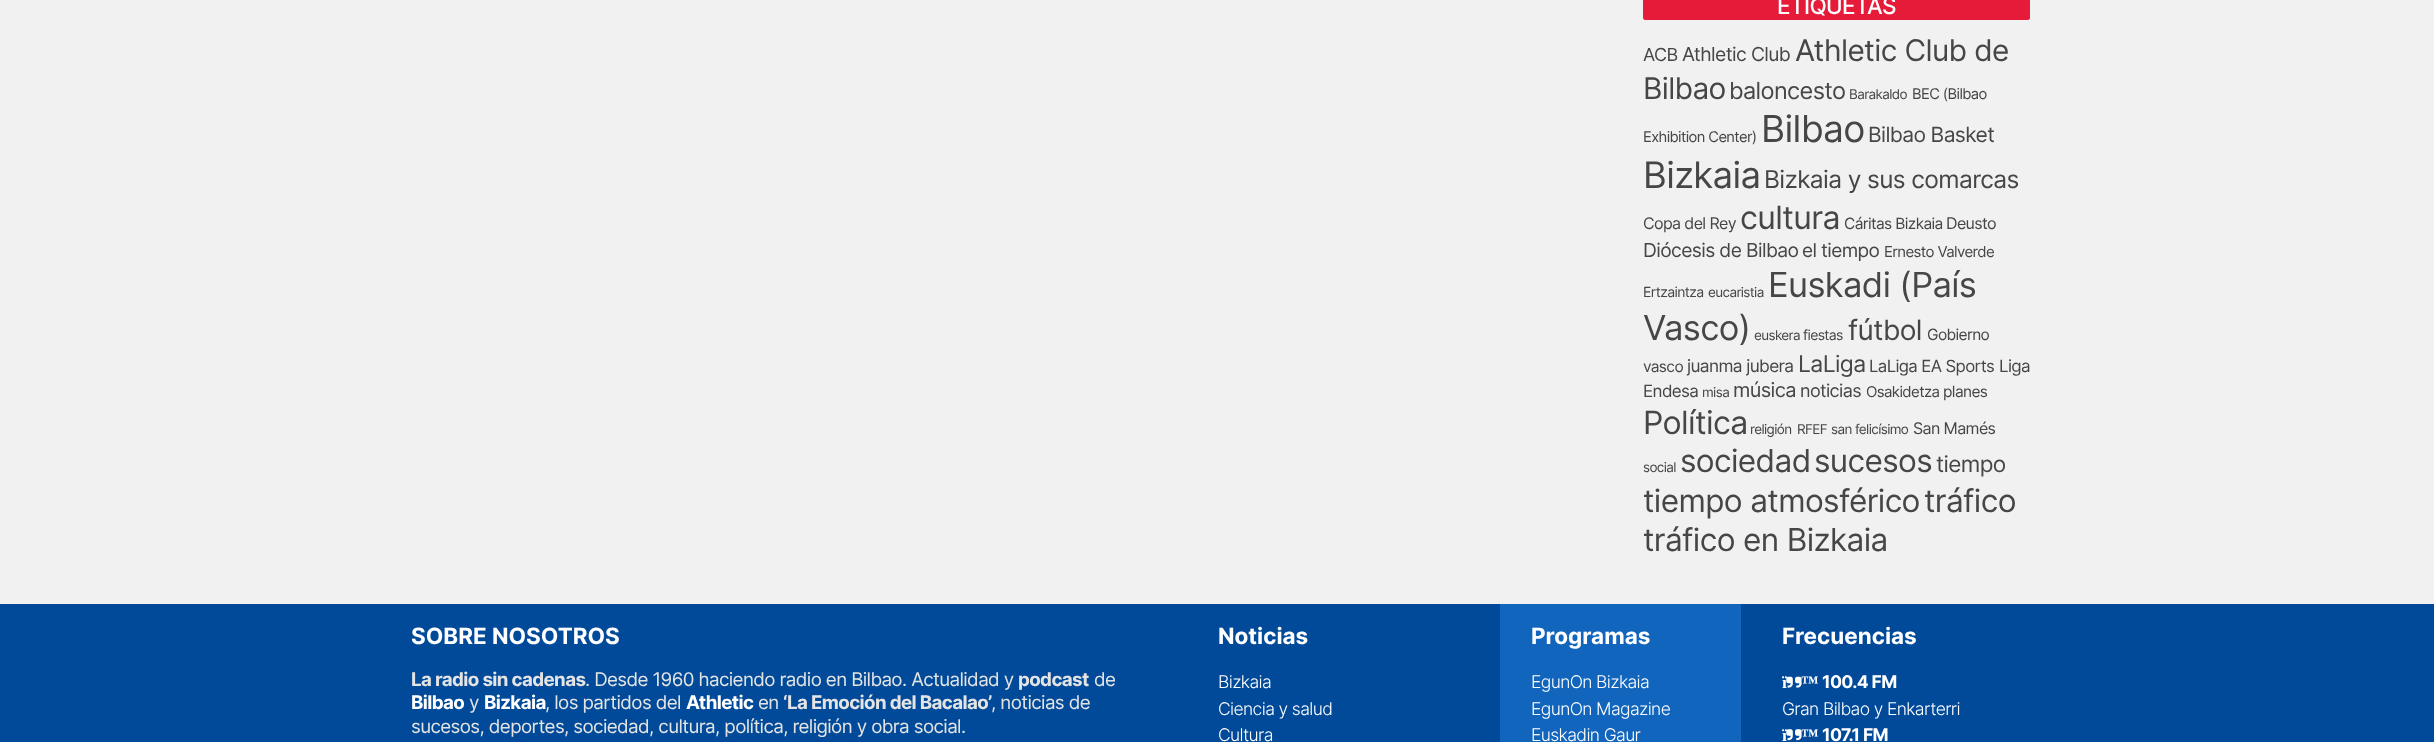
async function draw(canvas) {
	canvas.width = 2434;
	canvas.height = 742;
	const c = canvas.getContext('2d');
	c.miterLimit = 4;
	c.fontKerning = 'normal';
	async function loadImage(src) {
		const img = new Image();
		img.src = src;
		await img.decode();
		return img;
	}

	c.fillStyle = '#f1f1f1';
	c.fillRect(0, 0, 2434, 742);
	c.fillStyle = '#e61a39';
	c.beginPath();
	c.roundRect(1643, -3, 387, 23, 2.5);
	c.fill();
	c.letterSpacing = '-0.62px';
	c.font = '500 22.5px Inter';
	c.fillStyle = '#fff';
	c.fillText('ETIQUETAS', 1777, 14);
	c.font = '18px Inter';
	c.fillStyle = '#464646';
	c.fillText('ACB', 1643, 61);
	c.font = '19.25px Inter';
	c.fillText('Athletic Club', 1682, 61);
	c.font = '29.75px Inter';
	c.fillText('Athletic Club de', 1795, 61);
	c.fillText('Bilbao', 1643, 99);
	c.font = '23.5px Inter';
	c.fillText('baloncesto', 1729, 99);
	c.font = '13.5px Inter';
	c.fillText('Barakaldo', 1849, 99);
	c.font = '14.75px Inter';
	c.fillText('BEC (Bilbao', 1912, 99);
	c.fillText('Exhibition Center)', 1643, 142);
	c.font = '37px Inter';
	c.fillText('Bilbao', 1761, 142);
	c.font = '21px Inter';
	c.fillText('Bilbao Basket', 1868, 142);
	c.font = '36.5px Inter';
	c.fillText('Bizkaia', 1643, 188);
	c.font = '24.5px Inter';
	c.fillText('Bizkaia y sus comarcas', 1764, 188);
	c.font = '16px Inter';
	c.fillText('Copa del Rey', 1643, 229);
	c.font = '32px Inter';
	c.fillText('cultura', 1740, 229);
	c.font = '15.5px Inter';
	c.fillText('Cáritas Bizkaia', 1844, 229);
	c.font = '16px Inter';
	c.fillText('Deusto', 1946, 229);
	c.font = '19.25px Inter';
	c.fillText('Diócesis de Bilbao', 1643, 257);
	c.font = '19px Inter';
	c.fillText('el tiempo', 1802, 257);
	c.font = '15px Inter';
	c.fillText('Ernesto Valverde', 1884, 257);
	c.font = '14px Inter';
	c.fillText('Ertzaintza', 1643, 297);
	c.font = '13.5px Inter';
	c.fillText('eucaristia', 1708, 297);
	c.font = '34.5px Inter';
	c.fillText('Euskadi (País', 1768, 297);
	c.fillText('Vasco)', 1643, 340);
	c.font = '13.5px Inter';
	c.fillText('euskera', 1754, 340);
	c.font = '14px Inter';
	c.fillText('fiestas', 1803, 340);
	c.font = '28px Inter';
	c.fillText('fútbol', 1848, 340);
	c.font = '15.5px Inter';
	c.fillText('Gobierno', 1927, 340);
	c.fillText('vasco', 1643, 372);
	c.font = '17.25px Inter';
	c.fillText('juanma jubera', 1687, 372);
	c.font = '23px Inter';
	c.fillText('LaLiga', 1798, 372);
	c.font = '16.75px Inter';
	c.fillText('LaLiga EA Sports', 1869, 372);
	c.font = '17px Inter';
	c.fillText('Liga', 1999, 372);
	c.fillText('Endesa', 1643, 397);
	c.font = '13.5px Inter';
	c.fillText('misa', 1702, 397);
	c.font = '20px Inter';
	c.fillText('música', 1733, 397);
	c.font = '18px Inter';
	c.fillText('noticias', 1800, 397);
	c.font = '15px Inter';
	c.fillText('Osakidetza', 1866, 397);
	c.font = '15.5px Inter';
	c.fillText('planes', 1943, 397);
	c.font = '32px Inter';
	c.fillText('Política', 1643, 434);
	c.font = '13.5px Inter';
	for (const [text, x, y] of [
		['religión', 1750, 434],
		['RFEF', 1797, 434],
		['san felicísimo', 1831, 434],
	]) {
		c.fillText(text, x, y);
	}
	c.font = '16px Inter';
	c.fillText('San Mamés', 1913, 434);
	c.font = '13.5px Inter';
	c.fillText('social', 1643, 472);
	c.font = '31.5px Inter';
	c.fillText('sociedad', 1680, 472);
	c.fillText('sucesos', 1814, 472);
	c.font = '22.5px Inter';
	c.fillText('tiempo', 1936, 472);
	c.font = '31.5px Inter';
	for (const [text, x, y] of [
		['tiempo atmosférico', 1643, 512],
		['tráfico', 1924, 512],
		['tráfico en Bizkaia', 1643, 551],
	]) {
		c.fillText(text, x, y);
	}
	c.fillStyle = '#004a99';
	c.fillRect(0, 604, 2434, 138);
	c.letterSpacing = '0px';
	c.font = 'bold 22.5px Inter';
	c.fillStyle = '#fff';
	c.fillText('SOBRE NOSOTROS', 411, 644);
	c.letterSpacing = '-0.62px';
	c.font = 'bold 18.75px Inter';
	c.fillStyle = '#e4e4e4';
	c.fillText('La radio sin cadenas', 411, 686);
	c.font = '18.75px Inter';
	c.fillText('. Desde 1960 haciendo radio en Bilbao. Actualidad y', 585, 686);
	c.font = 'bold 18.75px Inter';
	c.fillText('podcast', 1018, 686);
	c.font = '18.75px Inter';
	c.fillText('de', 1094, 686);
	c.font = 'bold 18.75px Inter';
	c.fillStyle = '#fff';
	c.fillText('Bilbao', 411, 709);
	c.font = '18.75px Inter';
	c.fillStyle = '#e4e4e4';
	c.fillText('y', 469, 709);
	c.font = 'bold 18.75px Inter';
	c.fillStyle = '#fff';
	c.fillText('Bizkaia', 484, 709);
	c.font = '18.75px Inter';
	c.fillStyle = '#e4e4e4';
	c.fillText(', los partidos del', 545, 709);
	c.font = 'bold 18.75px Inter';
	c.fillStyle = '#fff';
	c.fillText('Athletic', 686, 709);
	c.font = '18.75px Inter';
	c.fillStyle = '#e4e4e4';
	c.fillText('en', 758, 709);
	c.font = 'bold 18.75px Inter';
	c.fillText('‘La Emoción del Bacalao’', 783, 709);
	c.font = '18.75px Inter';
	c.fillText(', noticias de', 991, 709);
	c.fillText('sucesos, deportes, sociedad, cultura, política, religión y obra social.', 411, 733);
	c.letterSpacing = '0px';
	c.font = 'bold 22.5px Inter';
	c.fillStyle = '#fff';
	c.fillText('Noticias', 1218, 644);
	c.letterSpacing = '-0.62px';
	c.font = '300 17.5px Inter';
	for (const [text, x, y] of [
		['Bizkaia', 1218, 688],
		['Ciencia y salud', 1218, 715],
		['Cultura', 1218, 741],
	]) {
		c.fillText(text, x, y);
	}
	c.fillStyle = '#1265bc';
	c.fillRect(1500, 604, 241, 138);
	c.letterSpacing = '0px';
	c.font = 'bold 22.5px Inter';
	c.fillStyle = '#fff';
	c.fillText('Programas', 1531, 644);
	c.letterSpacing = '-0.62px';
	c.font = '300 17.5px Inter';
	for (const [text, x, y] of [
		['EgunOn Bizkaia', 1531, 688],
		['EgunOn Magazine', 1531, 715],
		['Euskadin Gaur', 1531, 741],
	]) {
		c.fillText(text, x, y);
	}
	c.letterSpacing = '0px';
	c.font = 'bold 22.5px Inter';
	c.fillText('Frecuencias', 1782, 644);
	c.drawImage(await loadImage('img1.png'), 1786, 676, 16, 12);
	c.letterSpacing = '-0.62px';
	c.font = 'bold 17.5px Liberation Serif';
	c.fillText('ï', 1782, 688);
	c.fillText('™', 1801, 688);
	c.font = 'bold 17.5px Inter';
	c.fillText('100.4 FM', 1822, 688);
	c.font = '300 17.5px Inter';
	c.fillText('Gran Bilbao y Enkarterri', 1782, 715);
	c.drawImage(await loadImage('img2.png'), 1786, 729, 16, 12);
	c.font = 'bold 17.5px Liberation Serif';
	c.fillText('ï', 1782, 741);
	c.fillText('™', 1801, 741);
	c.font = 'bold 17.5px Inter';
	c.fillText('107.1 FM', 1822, 741);
}

draw(document.querySelector('canvas'));
